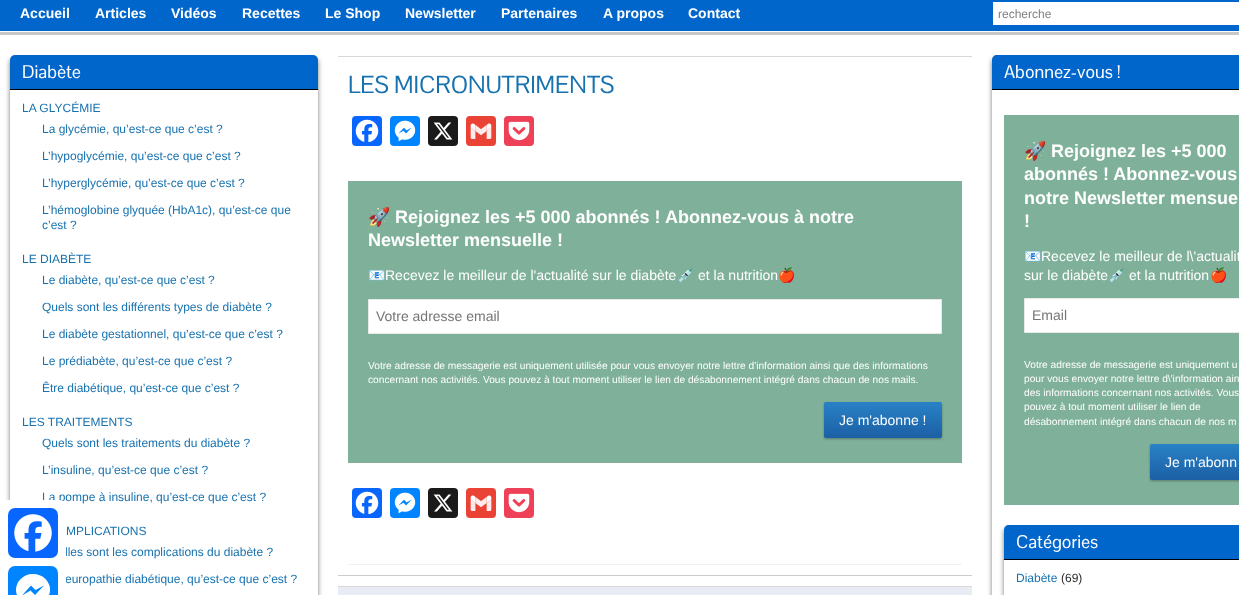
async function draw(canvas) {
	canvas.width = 1239;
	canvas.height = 595;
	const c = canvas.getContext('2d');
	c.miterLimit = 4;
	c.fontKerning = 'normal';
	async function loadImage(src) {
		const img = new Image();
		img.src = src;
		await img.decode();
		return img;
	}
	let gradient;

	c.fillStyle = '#c7c7c7';
	c.fillRect(0, 0, 1239, 595);
	c.fillStyle = '#06c';
	c.fillRect(0, 0, 1239, 31);
	c.fillStyle = '#fdfcfc';
	c.fillRect(0, 31, 1239, 1);
	c.font = 'bold 14px Liberation Sans';
	c.fillStyle = '#fff';
	for (const [text, x, y] of [
		['Accueil', 20, 18],
		['Articles', 95, 18],
		['Vidéos', 171, 18],
		['Recettes', 242, 18],
		['Le Shop', 325, 18],
		['Newsletter', 405, 18],
		['Partenaires', 501, 18],
		['A propos', 603, 18],
		['Contact', 688, 18],
	]) {
		c.fillText(text, x, y);
	}
	c.fillRect(993, 2, 246, 23);
	c.font = '12px Liberation Sans';
	c.fillStyle = '#808080';
	c.fillText('recherche', 998, 18);
	c.fillStyle = '#fff';
	c.fillRect(0, 35, 1239, 560);
	c.save();
	c.beginPath();
	c.moveTo(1, 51);
	c.lineTo(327, 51);
	c.lineTo(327, 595);
	c.lineTo(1, 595);
	c.closePath();
	c.moveTo(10, 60);
	c.lineTo(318, 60);
	c.lineTo(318, 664);
	c.lineTo(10, 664);
	c.closePath();
	c.clip('evenodd');
	c.fillStyle = '#787977';
	c.filter = 'blur(2.5px)';
	c.beginPath();
	c.rect(10, 60, 308, 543);
	c.fill();
	c.filter = 'none';
	c.restore();
	c.fillStyle = '#06c';
	c.beginPath();
	c.roundRect(10, 55, 308, 35, [5, 5, 0, 0]);
	c.fill();
	c.fillStyle = '#000';
	c.fillRect(10, 89, 308, 1);
	c.font = '18px Pontano Sans';
	c.fillStyle = '#fff';
	c.fillText('Diabète', 22, 78);
	c.font = '12px Liberation Sans';
	c.fillStyle = '#1772af';
	for (const [text, x, y] of [
		['LA GLYCÉMIE', 22, 112],
		['La glycémie, qu’est-ce que c’est ?', 42, 133],
		['L’hypoglycémie, qu’est-ce que c’est ?', 42, 160],
		['L’hyperglycémie, qu’est-ce que c’est ?', 42, 187],
		['L’hémoglobine glyquée (HbA1c), qu’est-ce que', 42, 214],
		['c’est ?', 42, 229],
		['LE DIABÈTE', 22, 263],
		['Le diabète, qu’est-ce que c’est ?', 42, 284],
		['Quels sont les différents types de diabète ?', 42, 311],
		['Le diabète gestationnel, qu’est-ce que c’est ?', 42, 338],
		['Le prédiabète, qu’est-ce que c’est ?', 42, 365],
		['Être diabétique, qu’est-ce que c’est ?', 42, 392],
		['LES TRAITEMENTS', 22, 426],
		['Quels sont les traitements du diabète ?', 42, 447],
		['L’insuline, qu’est-ce que c’est ?', 42, 474],
		['La pompe à insuline, qu’est-ce que c’est ?', 42, 501],
		['MPLICATIONS', 66, 535],
		['lles sont les complications du diabète ?', 65, 556],
		['europathie diabétique, qu’est-ce que c’est ?', 65, 583],
	]) {
		c.fillText(text, x, y);
	}
	c.fillStyle = '#d8d8d8';
	c.fillRect(338, 56, 634, 1);
	c.fillStyle = '#ccc';
	c.fillRect(338, 575, 634, 1);
	c.font = '24px Pontano Sans';
	c.fillStyle = '#1772af';
	c.fillText('LES MICRONUTRIMENTS', 348, 93);
	c.fillStyle = '#0866ff';
	c.beginPath();
	c.roundRect(352, 116, 30, 30, 4);
	c.fill();
	c.drawImage(await loadImage('img1.png'), 355, 119, 24, 24);
	c.fillStyle = '#0084ff';
	c.beginPath();
	c.roundRect(390, 116, 30, 30, 4);
	c.fill();
	c.drawImage(await loadImage('img2.png'), 394, 120, 22, 22);
	c.fillStyle = '#1a1a1a';
	c.beginPath();
	c.roundRect(428, 116, 30, 30, 4);
	c.fill();
	c.drawImage(await loadImage('img3.png'), 433, 122, 20, 18);
	c.fillStyle = '#ea4335';
	c.beginPath();
	c.roundRect(466, 116, 30, 30, 4);
	c.fill();
	c.drawImage(await loadImage('img4.png'), 470, 123, 22, 16);
	c.fillStyle = '#ee4056';
	c.beginPath();
	c.roundRect(504, 116, 30, 30, 4);
	c.fill();
	c.drawImage(await loadImage('img5.png'), 508, 121, 22, 20);
	c.fillStyle = '#7fb09a';
	c.fillRect(348, 181, 614, 282);
	c.font = 'bold 18px Noto Color Emoji';
	c.fillStyle = '#fff';
	c.fillText('🚀', 368, 223);
	c.font = 'bold 18px Liberation Sans';
	c.fillText('Rejoignez les +5 000 abonnés ! Abonnez-vous à notre', 395, 223);
	c.fillText('Newsletter mensuelle !', 368, 246);
	c.font = '14px Noto Color Emoji';
	c.fillText('📧', 368, 280);
	c.font = '14px Liberation Sans';
	c.fillText('Recevez le meilleur de l\'actualité sur le diabète', 385, 280);
	c.font = '14px Noto Color Emoji';
	c.fillText('💉', 677, 280);
	c.font = '14px Liberation Sans';
	c.fillText('et la nutrition', 698, 280);
	c.font = '14px Noto Color Emoji';
	c.fillText('🍎', 778, 280);
	c.beginPath();
	c.rect(368.5, 299.5, 573, 34);
	c.fill();
	c.strokeStyle = '#e9e9e9';
	c.stroke();
	c.font = '14px Liberation Sans';
	c.fillStyle = '#757575';
	c.fillText('Votre adresse email', 376, 321);
	c.font = '10.2px Liberation Sans';
	c.fillStyle = '#fff';
	c.fillText('Votre adresse de messagerie est uniquement utilisée pour vous envoyer notre lettre d\'information ainsi que des informations', 368, 369);
	c.fillText('concernant nos activités. Vous pouvez à tout moment utiliser le lien de désabonnement intégré dans chacun de nos mails.', 368, 383);
	c.fillStyle = '#0000004d';
	c.filter = 'blur(1px)';
	c.beginPath();
	c.roundRect(824, 403, 118, 36, 2);
	c.fill();
	c.filter = 'none';
	gradient = c.createLinearGradient(883, 402, 883, 438);
	gradient.addColorStop(0, '#2982c5');
	gradient.addColorStop(1, '#1c5fa5');
	c.fillStyle = gradient;
	c.beginPath();
	c.roundRect(824, 402, 118, 36, 2);
	c.fill();
	c.font = '14px Liberation Sans';
	c.fillStyle = '#fff';
	c.fillText('Je m\'abonne !', 839, 425);
	c.fillStyle = '#0866ff';
	c.beginPath();
	c.roundRect(352, 488, 30, 30, 4);
	c.fill();
	c.drawImage(await loadImage('img1.png'), 355, 491, 24, 24);
	c.fillStyle = '#0084ff';
	c.beginPath();
	c.roundRect(390, 488, 30, 30, 4);
	c.fill();
	c.drawImage(await loadImage('img2.png'), 394, 492, 22, 22);
	c.fillStyle = '#1a1a1a';
	c.beginPath();
	c.roundRect(428, 488, 30, 30, 4);
	c.fill();
	c.drawImage(await loadImage('img3.png'), 433, 494, 20, 18);
	c.fillStyle = '#ea4335';
	c.beginPath();
	c.roundRect(466, 488, 30, 30, 4);
	c.fill();
	c.drawImage(await loadImage('img4.png'), 470, 495, 22, 16);
	c.fillStyle = '#ee4056';
	c.beginPath();
	c.roundRect(504, 488, 30, 30, 4);
	c.fill();
	c.drawImage(await loadImage('img5.png'), 508, 493, 22, 20);
	for (const [x, y, w, h, color] of [
		[348, 564, 614, 1, '#f0f0f0'],
		[338, 587, 634, 8, '#e9ecf5'],
		[338, 586, 634, 1, '#d8d8d8'],
	]) {
		c.fillStyle = color;
		c.fillRect(x, y, w, h);
	}
	c.save();
	c.beginPath();
	c.moveTo(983, 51);
	c.lineTo(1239, 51);
	c.lineTo(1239, 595);
	c.lineTo(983, 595);
	c.closePath();
	c.moveTo(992, 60);
	c.lineTo(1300, 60);
	c.lineTo(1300, 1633);
	c.lineTo(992, 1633);
	c.closePath();
	c.clip('evenodd');
	c.fillStyle = '#787977';
	c.filter = 'blur(2.5px)';
	c.beginPath();
	c.rect(992, 60, 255, 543);
	c.fill();
	c.filter = 'none';
	c.restore();
	c.fillStyle = '#06c';
	c.beginPath();
	c.moveTo(997, 55);
	c.lineTo(1239, 55);
	c.bezierCurveTo(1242, 55, 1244, 57, 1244, 60);
	c.lineTo(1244, 90);
	c.lineTo(992, 90);
	c.lineTo(992, 60);
	c.bezierCurveTo(992, 57, 994, 55, 997, 55);
	c.closePath();
	c.fill();
	c.fillStyle = '#000';
	c.fillRect(992, 89, 247, 1);
	c.font = '18px Pontano Sans';
	c.fillStyle = '#fff';
	c.fillText('Abonnez-vous !', 1004, 78);
	c.fillStyle = '#7fb09a';
	c.fillRect(1004, 115, 235, 390);
	c.font = 'bold 18px Noto Color Emoji';
	c.fillStyle = '#fff';
	c.fillText('🚀', 1024, 157);
	c.font = 'bold 18px Liberation Sans';
	for (const [text, x, y] of [
		['Rejoignez les +5 000', 1051, 157],
		['abonnés ! Abonnez-vous', 1024, 180],
		['notre Newsletter mensue', 1024, 204],
		['!', 1024, 227],
	]) {
		c.fillText(text, x, y);
	}
	c.font = '14px Noto Color Emoji';
	c.fillText('📧', 1024, 261);
	c.font = '14px Liberation Sans';
	c.fillText('Recevez le meilleur de l\\\'actualit', 1041, 261);
	c.fillText('sur le diabète', 1024, 280);
	c.font = '14px Noto Color Emoji';
	c.fillText('💉', 1108, 280);
	c.font = '14px Liberation Sans';
	c.fillText('et la nutrition', 1129, 280);
	c.font = '14px Noto Color Emoji';
	c.fillText('🍎', 1210, 280);
	c.beginPath();
	c.rect(1024.5, 298.5, 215, 34);
	c.fill();
	c.stroke();
	c.font = '14px Liberation Sans';
	c.fillStyle = '#757575';
	c.fillText('Email', 1032, 320);
	c.font = '10.2px Liberation Sans';
	c.fillStyle = '#fff';
	for (const [text, x, y] of [
		['Votre adresse de messagerie est uniquement u', 1024, 368],
		['pour vous envoyer notre lettre d\\\'information ain', 1024, 382],
		['des informations concernant nos activités. Vous', 1024, 396],
		['pouvez à tout moment utiliser le lien de', 1024, 410],
		['désabonnement intégré dans chacun de nos m', 1024, 425],
	]) {
		c.fillText(text, x, y);
	}
	c.fillStyle = '#0000004d';
	c.filter = 'blur(1px)';
	c.beginPath();
	c.roundRect(1150, 445, 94, 36, 2);
	c.fill();
	c.filter = 'none';
	gradient = c.createLinearGradient(1209, 444, 1209, 480);
	gradient.addColorStop(0, '#2982c5');
	gradient.addColorStop(1, '#1c5fa5');
	c.fillStyle = gradient;
	c.beginPath();
	c.roundRect(1150, 444, 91, 36, 2);
	c.fill();
	c.font = '14px Liberation Sans';
	c.fillStyle = '#fff';
	c.fillText('Je m\'abonn', 1165, 467);
	c.save();
	c.beginPath();
	c.moveTo(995, 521);
	c.lineTo(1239, 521);
	c.lineTo(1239, 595);
	c.lineTo(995, 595);
	c.closePath();
	c.moveTo(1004, 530);
	c.lineTo(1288, 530);
	c.lineTo(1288, 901);
	c.lineTo(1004, 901);
	c.closePath();
	c.clip('evenodd');
	c.fillStyle = '#787977';
	c.filter = 'blur(2.5px)';
	c.beginPath();
	c.rect(1004, 530, 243, 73);
	c.fill();
	c.filter = 'none';
	c.restore();
	c.fillStyle = '#06c';
	c.beginPath();
	c.moveTo(1009, 525);
	c.lineTo(1239, 525);
	c.bezierCurveTo(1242, 525, 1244, 527, 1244, 530);
	c.lineTo(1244, 560);
	c.lineTo(1004, 560);
	c.lineTo(1004, 530);
	c.bezierCurveTo(1004, 527, 1006, 525, 1009, 525);
	c.closePath();
	c.fill();
	c.fillStyle = '#000';
	c.fillRect(1004, 559, 235, 1);
	c.font = '18px Pontano Sans';
	c.fillStyle = '#fff';
	c.fillText('Catégories', 1016, 548);
	c.font = '12px Liberation Sans';
	c.fillStyle = '#1772af';
	c.fillText('Diabète', 1016, 582);
	c.fillStyle = '#2c2b2b';
	c.fillText('(69)', 1061, 582);
	c.fillStyle = '#fff';
	c.beginPath();
	c.roundRect(0, 500, 66, 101, 6);
	c.fill();
	c.fillStyle = '#0866ff';
	c.beginPath();
	c.roundRect(8, 508, 50, 50, 7);
	c.fill();
	c.drawImage(await loadImage('img6.png'), 14, 514, 38, 38);
	c.fillStyle = '#0084ff';
	c.beginPath();
	c.roundRect(8, 566, 50, 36, 7);
	c.fill();
	c.fillStyle = '#fff';
	c.beginPath();
	c.moveTo(33, 574);
	c.bezierCurveTo(17.5, 574, 9.5, 592.5, 22.5, 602);
	c.lineTo(22.5, 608);
	c.lineTo(28, 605);
	c.bezierCurveTo(44, 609.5, 58, 591, 45, 578.5);
	c.bezierCurveTo(42, 575.5, 37.5, 574, 33, 574);
	c.moveTo(35, 595);
	c.lineTo(30.5, 590.5);
	c.lineTo(22, 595.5);
	c.lineTo(31, 585.5);
	c.lineTo(35.5, 590);
	c.lineTo(44, 585.5);
	c.closePath();
	c.fill();
}

draw(document.querySelector('canvas'));
